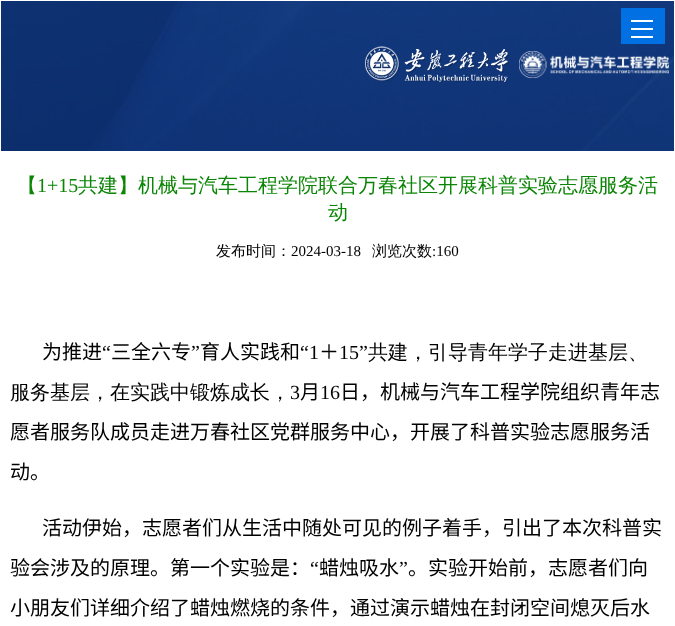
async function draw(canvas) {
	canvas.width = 675;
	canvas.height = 626;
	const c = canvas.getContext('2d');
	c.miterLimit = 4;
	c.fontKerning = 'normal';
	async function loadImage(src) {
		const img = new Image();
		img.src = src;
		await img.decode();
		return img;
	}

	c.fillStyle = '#fff';
	c.fillRect(0, 0, 675, 626);
	c.fillStyle = '#093678';
	c.fillRect(1, 1, 673, 150);
	c.drawImage(await loadImage('img1.png'), 1, 1, 673, 150);
	c.drawImage(await loadImage('img2.png'), 365, 46, 144, 37);
	c.drawImage(await loadImage('img3.png'), 519, 51, 150, 27);
	for (const [x, y, w, h, color] of [
		[621, 8, 44, 36, '#0170e2'],
		[631, 20, 22, 2, '#fff'],
		[631, 28, 22, 2, '#fff'],
		[631, 36, 22, 2, '#fff'],
	]) {
		c.fillStyle = color;
		c.fillRect(x, y, w, h);
	}
	c.font = '500 20px WenQuanYi Zen Hei';
	c.fillStyle = '#0b8505';
	c.fillText('【', 17, 192);
	c.font = '20px Liberation Serif';
	c.fillText('1+15', 37, 192);
	c.font = '500 20px WenQuanYi Zen Hei';
	c.fillText('共建】机械与汽车工程学院联合万春社区开展科普实验志愿服务活', 78, 192);
	c.fillText('动', 328, 219);
	c.font = '500 15px WenQuanYi Zen Hei';
	c.fillStyle = '#000';
	c.fillText('发布时间：', 216, 256);
	c.font = '15px Liberation Serif';
	c.fillText('2024-03-18', 291, 256);
	c.font = '500 15px WenQuanYi Zen Hei';
	c.fillText('浏览次数', 372, 256);
	c.font = '15px Liberation Serif';
	c.fillText(':160', 432, 256);
	c.font = '20px Noto Sans CJK SC';
	c.fillText('为推进', 42, 359);
	c.font = '20px Liberation Serif';
	c.fillText('“', 102, 359);
	c.font = '20px Noto Sans CJK SC';
	c.fillText('三全六专', 111, 359);
	c.font = '20px Liberation Serif';
	c.fillText('”', 191, 359);
	c.font = '20px Noto Sans CJK SC';
	c.fillText('育人实践和', 200, 359);
	c.font = '20px Liberation Serif';
	c.fillText('“1', 300, 359);
	c.font = '20px Noto Sans CJK SC';
	c.fillText('＋', 319, 359);
	c.font = '20px Liberation Serif';
	c.fillText('15”', 339, 359);
	c.font = '500 20px WenQuanYi Zen Hei';
	c.fillText('共建，引导青年学子走进基层、', 368, 359);
	c.fillText('服务基层，在实践中锻炼成长，', 10, 399);
	c.font = '20px Liberation Serif';
	c.fillText('3', 290, 399);
	c.font = '20px Noto Sans CJK SC';
	c.fillText('月', 300, 399);
	c.font = '20px Liberation Serif';
	c.fillText('16', 320, 399);
	c.font = '20px Noto Sans CJK SC';
	for (const [text, x, y] of [
		['日，机械与汽车工程学院组织青年志', 340, 399],
		['愿者服务队成员走进万春社区党群服务中心，开展了科普实验志愿服务活', 10, 439],
		['动。', 10, 479],
		['活动伊始，志愿者们从生活中随处可见的例子着手，引出了本次科普实', 42, 535],
		['验会涉及的原理。第一个实验是：', 10, 575],
	]) {
		c.fillText(text, x, y);
	}
	c.font = '20px Liberation Serif';
	c.fillText('“', 310, 575);
	c.font = '20px Noto Sans CJK SC';
	c.fillText('蜡烛吸水', 319, 575);
	c.font = '20px Liberation Serif';
	c.fillText('”', 399, 575);
	c.font = '20px Noto Sans CJK SC';
	c.fillText('。实验开始前，志愿者们向', 408, 575);
	c.fillText('小朋友们详细介绍了蜡烛燃烧的条件，通过演示蜡烛在封闭空间熄灭后水', 10, 615);
}

draw(document.querySelector('canvas'));
